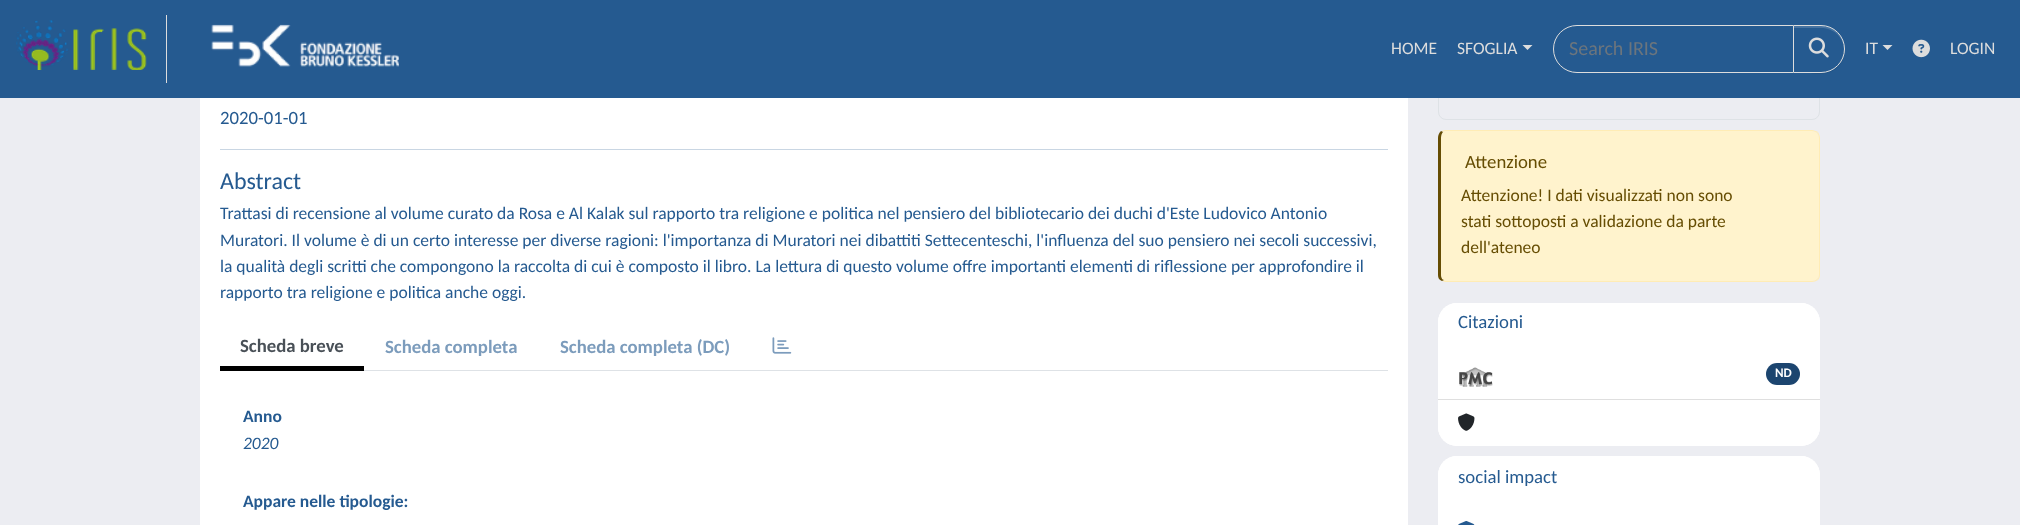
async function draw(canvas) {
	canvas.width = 2020;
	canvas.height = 525;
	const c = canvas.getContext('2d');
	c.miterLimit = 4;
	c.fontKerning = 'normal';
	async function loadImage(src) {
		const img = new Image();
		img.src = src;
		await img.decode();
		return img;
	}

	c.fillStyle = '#ecedf2';
	c.fillRect(0, 0, 2020, 525);
	c.beginPath();
	c.roundRect(1438.5, -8.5, 381, 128, 7.5);
	c.strokeStyle = '#dee2e6';
	c.stroke();
	c.fillStyle = '#255a90';
	c.fillRect(0, 0, 2020, 98);
	c.fillStyle = '#ddd';
	c.fillRect(166, 15, 1, 68);
	c.drawImage(await loadImage('img1.png'), 16, 20, 131, 50);
	c.drawImage(await loadImage('img2.png'), 211, 24, 188, 43);
	c.font = '17.5px Carlito';
	c.fillText('HOME', 1391, 54);
	c.fillText('SFOGLIA', 1457, 54);
	c.beginPath();
	c.moveTo(1522.5, 45);
	c.lineTo(1532.5, 45);
	c.lineTo(1527.5, 50);
	c.closePath();
	c.fill();
	c.beginPath();
	c.roundRect(1553.5, 25.5, 240, 47, [23.5, 0, 0, 23.5]);
	c.strokeStyle = '#ddd';
	c.stroke();
	c.font = '20px Carlito';
	c.fillStyle = '#6c757d';
	c.fillText('Search IRIS', 1569, 55);
	c.fillStyle = '#00000012';
	c.filter = 'blur(0.5px)';
	c.beginPath();
	c.roundRect(1793, 26, 52, 48, 24);
	c.fill();
	c.filter = 'none';
	c.fillStyle = '#255a90';
	c.beginPath();
	c.roundRect(1793, 25, 52, 48, [0, 24, 24, 0]);
	c.fill();
	c.fillStyle = '#4673a1';
	c.beginPath();
	c.moveTo(1794, 28);
	c.lineTo(1821, 28);
	c.bezierCurveTo(1834, 28, 1844, 38, 1844, 49);
	c.lineTo(1844, 48);
	c.bezierCurveTo(1844, 36, 1834, 26, 1822, 26);
	c.lineTo(1794, 26);
	c.closePath();
	c.fill();
	c.beginPath();
	c.roundRect(1793.5, 25.5, 51, 47, [0, 23.5, 23.5, 0]);
	c.stroke();
	c.drawImage(await loadImage('img3.png'), 1808, 37, 21, 21);
	c.font = '17.5px Carlito';
	c.fillStyle = '#ddd';
	c.fillText('IT', 1865, 54);
	c.beginPath();
	c.moveTo(1882.5, 45);
	c.lineTo(1892.5, 45);
	c.lineTo(1887.5, 50);
	c.closePath();
	c.fill();
	c.drawImage(await loadImage('img4.png'), 1912, 39, 18, 19);
	c.fillText('LOGIN', 1950, 54);
	c.fillStyle = '#fff';
	c.fillRect(200, 98, 1208, 427);
	c.font = '18.75px Carlito';
	c.fillStyle = '#255a90';
	c.fillText('2020-01-01', 220, 124);
	c.fillStyle = '#c9d6e3';
	c.fillRect(220, 149, 1168, 1);
	c.font = '24px Carlito';
	c.fillStyle = '#255a90';
	c.fillText('Abstract', 220, 189);
	c.font = '17.5px Carlito';
	for (const [text, x, y] of [
		['Trattasi di recensione al volume curato da Rosa e Al Kalak sul rapporto tra religione e politica nel pensiero del bibliotecario dei duchi d\'Este Ludovico Antonio', 220, 219],
		['Muratori. Il volume è di un certo interesse per diverse ragioni: l\'importanza di Muratori nei dibattiti Settecenteschi, l\'influenza del suo pensiero nei secoli successivi,', 220, 246],
		['la qualità degli scritti che compongono la raccolta di cui è composto il libro. La lettura di questo volume offre importanti elementi di riflessione per approfondire il', 220, 272],
		['rapporto tra religione e politica anche oggi.', 220, 298],
	]) {
		c.fillText(text, x, y);
	}
	c.fillStyle = '#dee2e6';
	c.fillRect(364, 370, 1024, 1);
	c.fillStyle = '#000';
	c.fillRect(220, 366, 144, 5);
	c.font = 'bold 18.75px Carlito';
	c.fillStyle = '#495057';
	c.fillText('Scheda breve', 240, 352);
	c.fillStyle = '#7c9cbc';
	c.fillText('Scheda completa', 385, 353);
	c.fillText('Scheda completa (DC)', 560, 353);
	c.drawImage(await loadImage('img5.png'), 772, 337, 20, 17);
	c.font = 'bold 17.5px Carlito';
	c.fillStyle = '#255a90';
	c.fillText('Anno', 243, 422);
	c.font = 'italic 17.5px Carlito';
	c.fillText('2020', 243, 449);
	c.font = 'bold 17.5px Carlito';
	c.fillText('Appare nelle tipologie:', 243, 507);
	c.fillStyle = '#fff3cd';
	c.beginPath();
	c.moveTo(1445, 131);
	c.lineTo(1812, 131);
	c.bezierCurveTo(1816, 131, 1819, 134, 1819, 138);
	c.lineTo(1819, 275);
	c.bezierCurveTo(1819, 278, 1816, 281, 1812, 281);
	c.lineTo(1445, 281);
	c.bezierCurveTo(1443, 281, 1441, 278, 1441, 275);
	c.lineTo(1441, 138);
	c.bezierCurveTo(1441, 134, 1443, 131, 1445, 131);
	c.closePath();
	c.fill();
	c.fillStyle = '#ffecb5';
	c.beginPath();
	c.moveTo(1445, 130);
	c.lineTo(1441, 131);
	c.lineTo(1443, 132);
	c.lineTo(1445, 131);
	c.lineTo(1812, 131);
	c.bezierCurveTo(1814, 131, 1816, 132, 1817, 133);
	c.lineTo(1818, 132);
	c.bezierCurveTo(1816, 131, 1814, 130, 1812, 130);
	c.closePath();
	c.fill();
	c.beginPath();
	c.moveTo(1820, 275);
	c.lineTo(1820, 138);
	c.bezierCurveTo(1820, 136, 1819, 134, 1818, 132);
	c.lineTo(1817, 133);
	c.bezierCurveTo(1818, 134, 1819, 136, 1819, 138);
	c.lineTo(1819, 275);
	c.bezierCurveTo(1819, 277, 1818, 278, 1817, 279);
	c.lineTo(1818, 280);
	c.bezierCurveTo(1819, 279, 1820, 277, 1820, 275);
	c.closePath();
	c.fill();
	c.beginPath();
	c.moveTo(1818, 280);
	c.bezierCurveTo(1816, 281, 1814, 282, 1812, 282);
	c.lineTo(1445, 282);
	c.lineTo(1442, 281);
	c.lineTo(1444, 280);
	c.lineTo(1445, 281);
	c.lineTo(1812, 281);
	c.bezierCurveTo(1814, 281, 1816, 280, 1817, 279);
	c.closePath();
	c.fill();
	c.fillStyle = '#664d03';
	c.beginPath();
	c.moveTo(1441, 131);
	c.bezierCurveTo(1439, 133, 1438, 135, 1438, 138);
	c.lineTo(1438, 275);
	c.bezierCurveTo(1438, 278, 1439, 280, 1442, 281);
	c.lineTo(1444, 280);
	c.bezierCurveTo(1442, 280, 1441, 277, 1441, 275);
	c.lineTo(1441, 138);
	c.bezierCurveTo(1441, 135, 1442, 133, 1443, 132);
	c.closePath();
	c.fill();
	c.font = '18.75px Carlito';
	c.fillText('Attenzione', 1465, 168);
	c.font = '17.5px Carlito';
	for (const [text, x, y] of [
		['Attenzione! I dati visualizzati non sono', 1461, 201],
		['stati sottoposti a validazione da parte', 1461, 227],
		['dell\'ateneo', 1461, 253],
	]) {
		c.fillText(text, x, y);
	}
	c.fillStyle = '#fff';
	c.beginPath();
	c.roundRect(1438, 303, 382, 143, 19);
	c.fill();
	c.beginPath();
	c.roundRect(1438, 303, 382, 50, [19, 19, 0, 0]);
	c.fill();
	c.font = '18.75px Carlito';
	c.fillStyle = '#255a90';
	c.fillText('Citazioni', 1458, 328);
	c.fillStyle = '#dfdfdf';
	c.fillRect(1438, 399, 382, 1);
	c.drawImage(await loadImage('img6.png'), 1459, 367, 34, 20);
	c.fillStyle = '#1c456f';
	c.beginPath();
	c.roundRect(1766, 363, 34, 22, 11);
	c.fill();
	c.font = 'bold 13px Carlito';
	c.fillStyle = '#fff';
	c.fillText('ND', 1775, 377);
	c.beginPath();
	c.roundRect(1438, 400, 382, 46, [0, 0, 19, 19]);
	c.fill();
	c.drawImage(await loadImage('img7.png'), 1458, 413, 17, 18);
	c.beginPath();
	c.roundRect(1438, 456, 382, 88, 19);
	c.fill();
	c.beginPath();
	c.roundRect(1438, 456, 382, 52, [19, 19, 0, 0]);
	c.fill();
	c.font = '18.75px Carlito';
	c.fillStyle = '#255a90';
	c.fillText('social impact', 1458, 483);
	c.drawImage(await loadImage('img8.png'), 1458, 521, 17, 4);
}

draw(document.querySelector('canvas'));
